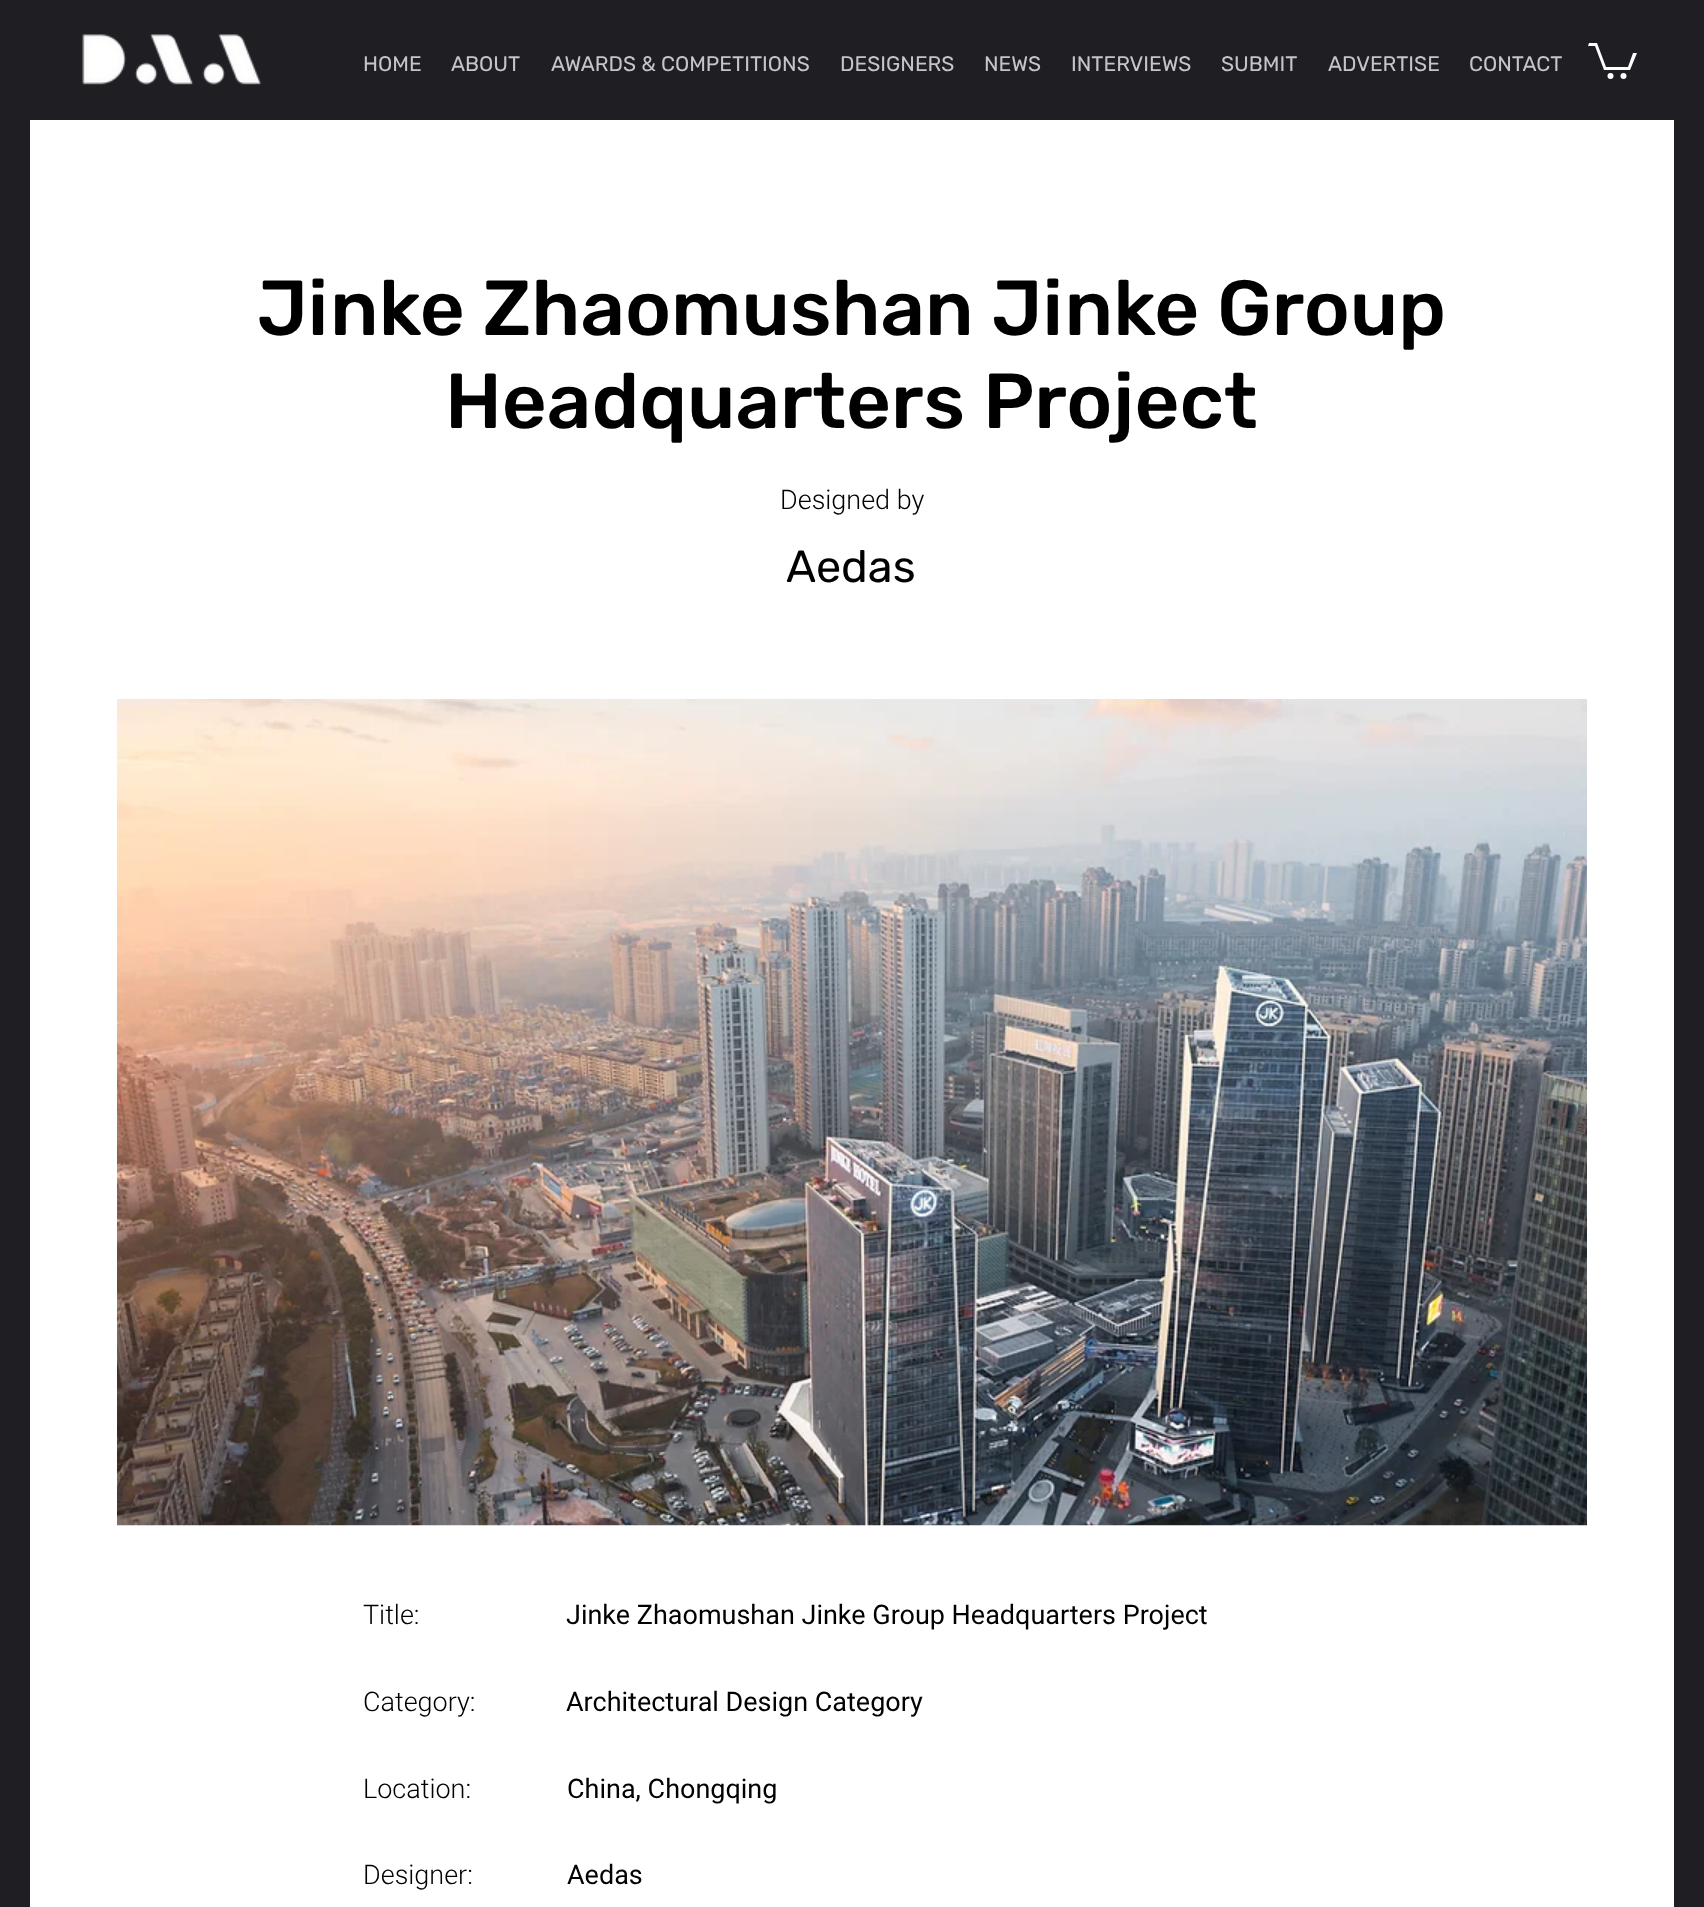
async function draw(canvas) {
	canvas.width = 1704;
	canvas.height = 1907;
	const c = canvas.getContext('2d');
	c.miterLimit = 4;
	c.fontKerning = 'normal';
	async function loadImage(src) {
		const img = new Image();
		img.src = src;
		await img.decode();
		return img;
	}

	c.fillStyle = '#1e1e23';
	c.fillRect(0, 0, 1704, 1907);
	c.drawImage(await loadImage('img1.png'), 82, 34, 180, 51);
	c.font = '21px Rubik';
	c.fillStyle = '#c5c5c8';
	for (const [text, x, y] of [
		['HOME', 363, 71],
		['ABOUT', 451, 71],
		['AWARDS & COMPETITIONS', 551, 71],
		['DESIGNERS', 840, 71],
		['NEWS', 984, 71],
		['INTERVIEWS', 1071, 71],
		['SUBMIT', 1221, 71],
		['ADVERTISE', 1328, 71],
		['CONTACT', 1469, 71],
	]) {
		c.fillText(text, x, y);
	}
	c.fillStyle = '#fff';
	c.beginPath();
	c.moveTo(1637, 53);
	c.lineTo(1630, 70);
	c.lineTo(1604, 70);
	c.lineTo(1595, 46);
	c.lineTo(1588, 46);
	c.lineTo(1589, 43);
	c.lineTo(1597, 43);
	c.lineTo(1606, 67);
	c.lineTo(1628, 67);
	c.lineTo(1633, 53);
	c.fill();
	c.beginPath();
	c.arc(1623.5, 76, 3, 0, 2 * Math.PI);
	c.fill();
	c.beginPath();
	c.arc(1610.5, 76, 3, 0, 2 * Math.PI);
	c.fill();
	c.fillRect(30, 120, 1644, 1787);
	c.font = '500 78px Rubik';
	c.fillStyle = '#000';
	c.fillText('Jinke Zhaomushan Jinke Group', 257, 335);
	c.fillText('Headquarters Project', 445, 428);
	c.font = '300 27px Roboto';
	c.fillText('Designed by', 780, 509);
	c.font = '45px Rubik';
	c.fillText('Aedas', 786, 582);
	c.drawImage(await loadImage('img2.png'), 117, 699, 1470, 827);
	c.font = '300 27px Roboto';
	c.fillText('Title:', 363, 1624);
	c.font = '27px Roboto';
	c.fillText('Jinke Zhaomushan Jinke Group Headquarters Project', 566, 1624);
	c.font = '300 27px Roboto';
	c.fillText('Category:', 363, 1711);
	c.font = '27px Roboto';
	c.fillText('Architectural Design Category', 566, 1711);
	c.font = '300 27px Roboto';
	c.fillText('Location:', 363, 1798);
	c.font = '27px Roboto';
	c.fillText('China, Chongqing', 567, 1798);
	c.font = '300 27px Roboto';
	c.fillText('Designer:', 363, 1884);
	c.font = '27px Roboto';
	c.fillText('Aedas', 567, 1884);
}

draw(document.querySelector('canvas'));
